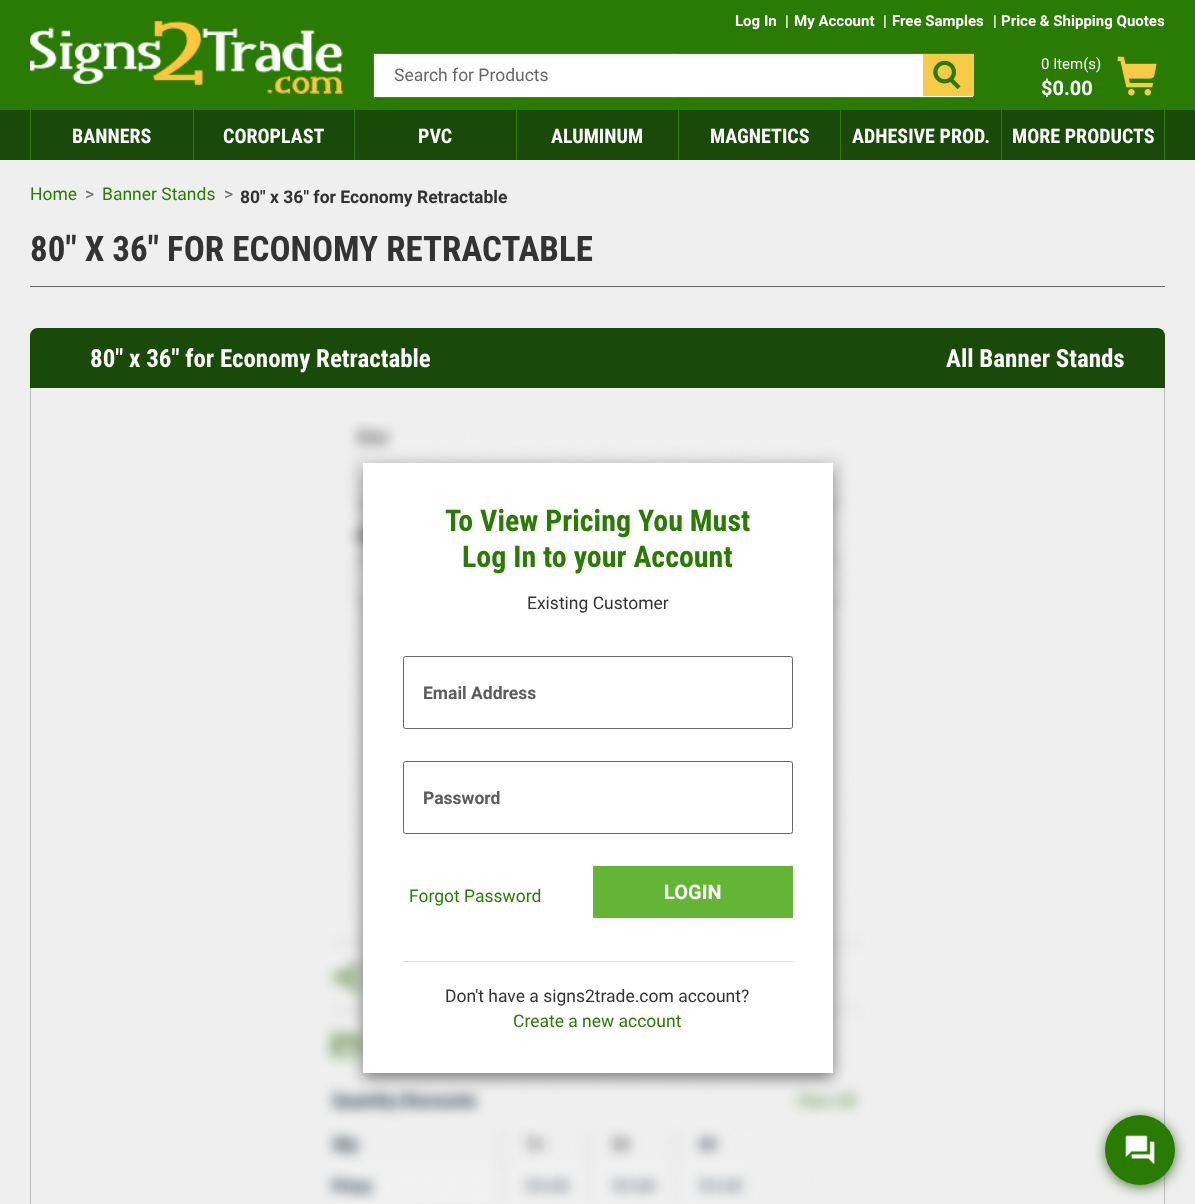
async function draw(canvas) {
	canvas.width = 1195;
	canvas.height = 1204;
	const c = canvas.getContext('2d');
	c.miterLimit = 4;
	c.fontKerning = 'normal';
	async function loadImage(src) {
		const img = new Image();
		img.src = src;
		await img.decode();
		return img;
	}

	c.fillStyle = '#efefef';
	c.fillRect(0, 0, 1195, 1204);
	c.fillStyle = '#297b03';
	c.fillRect(0, 0, 1195, 110);
	c.drawImage(await loadImage('img1.png'), 30, 21, 313, 73);
	c.font = 'bold 15px Roboto';
	c.fillStyle = '#fff';
	for (const [text, x, y] of [
		['Log In', 735, 26],
		['|', 785, 26],
		['My Account', 794, 26],
		['|', 883, 26],
		['Free Samples', 892, 26],
		['|', 993, 26],
		['Price & Shipping Quotes', 1001, 26],
	]) {
		c.fillText(text, x, y);
	}
	c.beginPath();
	c.rect(373.5, 53.5, 600, 44);
	c.fill();
	c.strokeStyle = '#666';
	c.stroke();
	c.font = '17.5px Roboto';
	c.fillStyle = '#666';
	c.fillText('Search for Products', 394, 81);
	c.fillStyle = '#f8cb47';
	c.fillRect(923, 54, 51, 42);
	c.drawImage(await loadImage('img2.png'), 933, 60, 28, 30);
	c.font = '15px Roboto';
	c.fillStyle = '#fff';
	c.fillText('0 Item(s)', 1041, 69);
	c.font = 'bold 20px Roboto';
	c.fillText('$0.00', 1041, 95);
	c.drawImage(await loadImage('img3.png'), 1117, 56, 40, 40);
	for (const [x, y, w, h, color] of [
		[0, 110, 1195, 50, '#1a4a09'],
		[193, 110, 1, 50, '#297b03'],
		[30, 110, 1, 50, '#297b03'],
	]) {
		c.fillStyle = color;
		c.fillRect(x, y, w, h);
	}
	c.font = 'bold 20px Roboto Condensed';
	c.fillStyle = '#fff';
	c.fillText('BANNERS', 72, 143);
	c.fillStyle = '#297b03';
	c.fillRect(354, 110, 1, 50);
	c.fillStyle = '#fff';
	c.fillText('COROPLAST', 223, 143);
	c.fillStyle = '#297b03';
	c.fillRect(516, 110, 1, 50);
	c.fillStyle = '#fff';
	c.fillText('PVC', 418, 143);
	c.fillStyle = '#297b03';
	c.fillRect(678, 110, 1, 50);
	c.fillStyle = '#fff';
	c.fillText('ALUMINUM', 551, 143);
	c.fillStyle = '#297b03';
	c.fillRect(840, 110, 1, 50);
	c.fillStyle = '#fff';
	c.fillText('MAGNETICS', 710, 143);
	c.fillStyle = '#297b03';
	c.fillRect(1001, 110, 1, 50);
	c.fillStyle = '#fff';
	c.fillText('ADHESIVE PROD.', 852, 143);
	c.fillStyle = '#297b03';
	c.fillRect(1164, 110, 1, 50);
	c.fillStyle = '#fff';
	c.fillText('MORE PRODUCTS', 1012, 143);
	c.font = '17.5px Roboto';
	c.fillStyle = '#297b03';
	c.fillText('Home', 30, 200);
	c.fillStyle = '#666';
	c.fillText('>', 85, 200);
	c.fillStyle = '#297b03';
	c.fillText('Banner Stands', 102, 200);
	c.fillStyle = '#666';
	c.fillText('>', 224, 200);
	c.font = 'bold 17.5px Roboto';
	c.fillStyle = '#333';
	c.fillText('80" x 36" for Economy Retractable', 240, 203);
	c.fillStyle = '#666';
	c.fillRect(30, 286, 1135, 1);
	c.font = 'bold 35px Roboto Condensed';
	c.fillStyle = '#333';
	c.fillText('80" X 36" FOR ECONOMY RETRACTABLE', 30, 261);
	c.beginPath();
	c.roundRect(30.5, 328.5, 1134, 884, 7.5);
	c.strokeStyle = '#bcbcbc';
	c.stroke();
	c.fillStyle = '#1a4a09';
	c.beginPath();
	c.roundRect(30, 328, 1135, 60, [8, 8, 0, 0]);
	c.fill();
	c.font = 'bold 25px Roboto Condensed';
	c.fillStyle = '#fff';
	c.fillText('80" x 36" for Economy Retractable', 90, 367);
	c.fillText('All Banner Stands', 946, 367);
	c.drawImage(await loadImage('img4.png'), 320, 421, 545, 781);
	c.fillStyle = '#00000080';
	c.filter = 'blur(7.5px)';
	c.beginPath();
	c.rect(363, 468, 470, 610);
	c.fill();
	c.filter = 'none';
	c.fillStyle = '#fff';
	c.fillRect(363, 463, 470, 610);
	c.font = 'bold 30px Roboto Condensed';
	c.fillStyle = '#297b03';
	c.fillText('To View Pricing You Must', 445, 531);
	c.fillText('Log In to your Account', 462, 567);
	c.font = '17.5px Roboto';
	c.fillStyle = '#333';
	c.fillText('Existing Customer', 527, 609);
	c.beginPath();
	c.roundRect(403.5, 656.5, 389, 72, 2);
	c.strokeStyle = '#666';
	c.stroke();
	c.font = 'bold 17.5px Roboto';
	c.fillStyle = '#5c5c5c';
	c.fillText('Email Address', 423, 699);
	c.beginPath();
	c.roundRect(403.5, 761.5, 389, 72, 2);
	c.stroke();
	c.fillText('Password', 423, 804);
	c.font = '17.5px Roboto';
	c.fillStyle = '#297b03';
	c.fillText('Forgot Password', 409, 902);
	c.fillStyle = '#64b436';
	c.fillRect(593, 866, 200, 52);
	c.font = 'bold 20px Roboto';
	c.fillStyle = '#fff';
	c.fillText('LOGIN', 664, 899);
	c.fillStyle = '#dadcdd';
	c.fillRect(403, 961, 390, 1);
	c.font = '17.5px Roboto';
	c.fillStyle = '#333';
	c.fillText('Don\'t have a signs2trade.com account?', 445, 1002);
	c.fillStyle = '#297b03';
	c.fillText('Create a new account', 513, 1027);
	c.fillStyle = '#1a4a09';
	c.filter = 'blur(7.5px)';
	c.beginPath();
	c.roundRect(1108, 1120, 65, 65, 32.5);
	c.fill();
	c.filter = 'none';
	c.fillStyle = '#297b03';
	c.beginPath();
	c.arc(1140, 1150, 35, 0, 2 * Math.PI);
	c.fill();
	c.drawImage(await loadImage('img5.png'), 1125, 1135, 30, 30);
}

draw(document.querySelector('canvas'));
